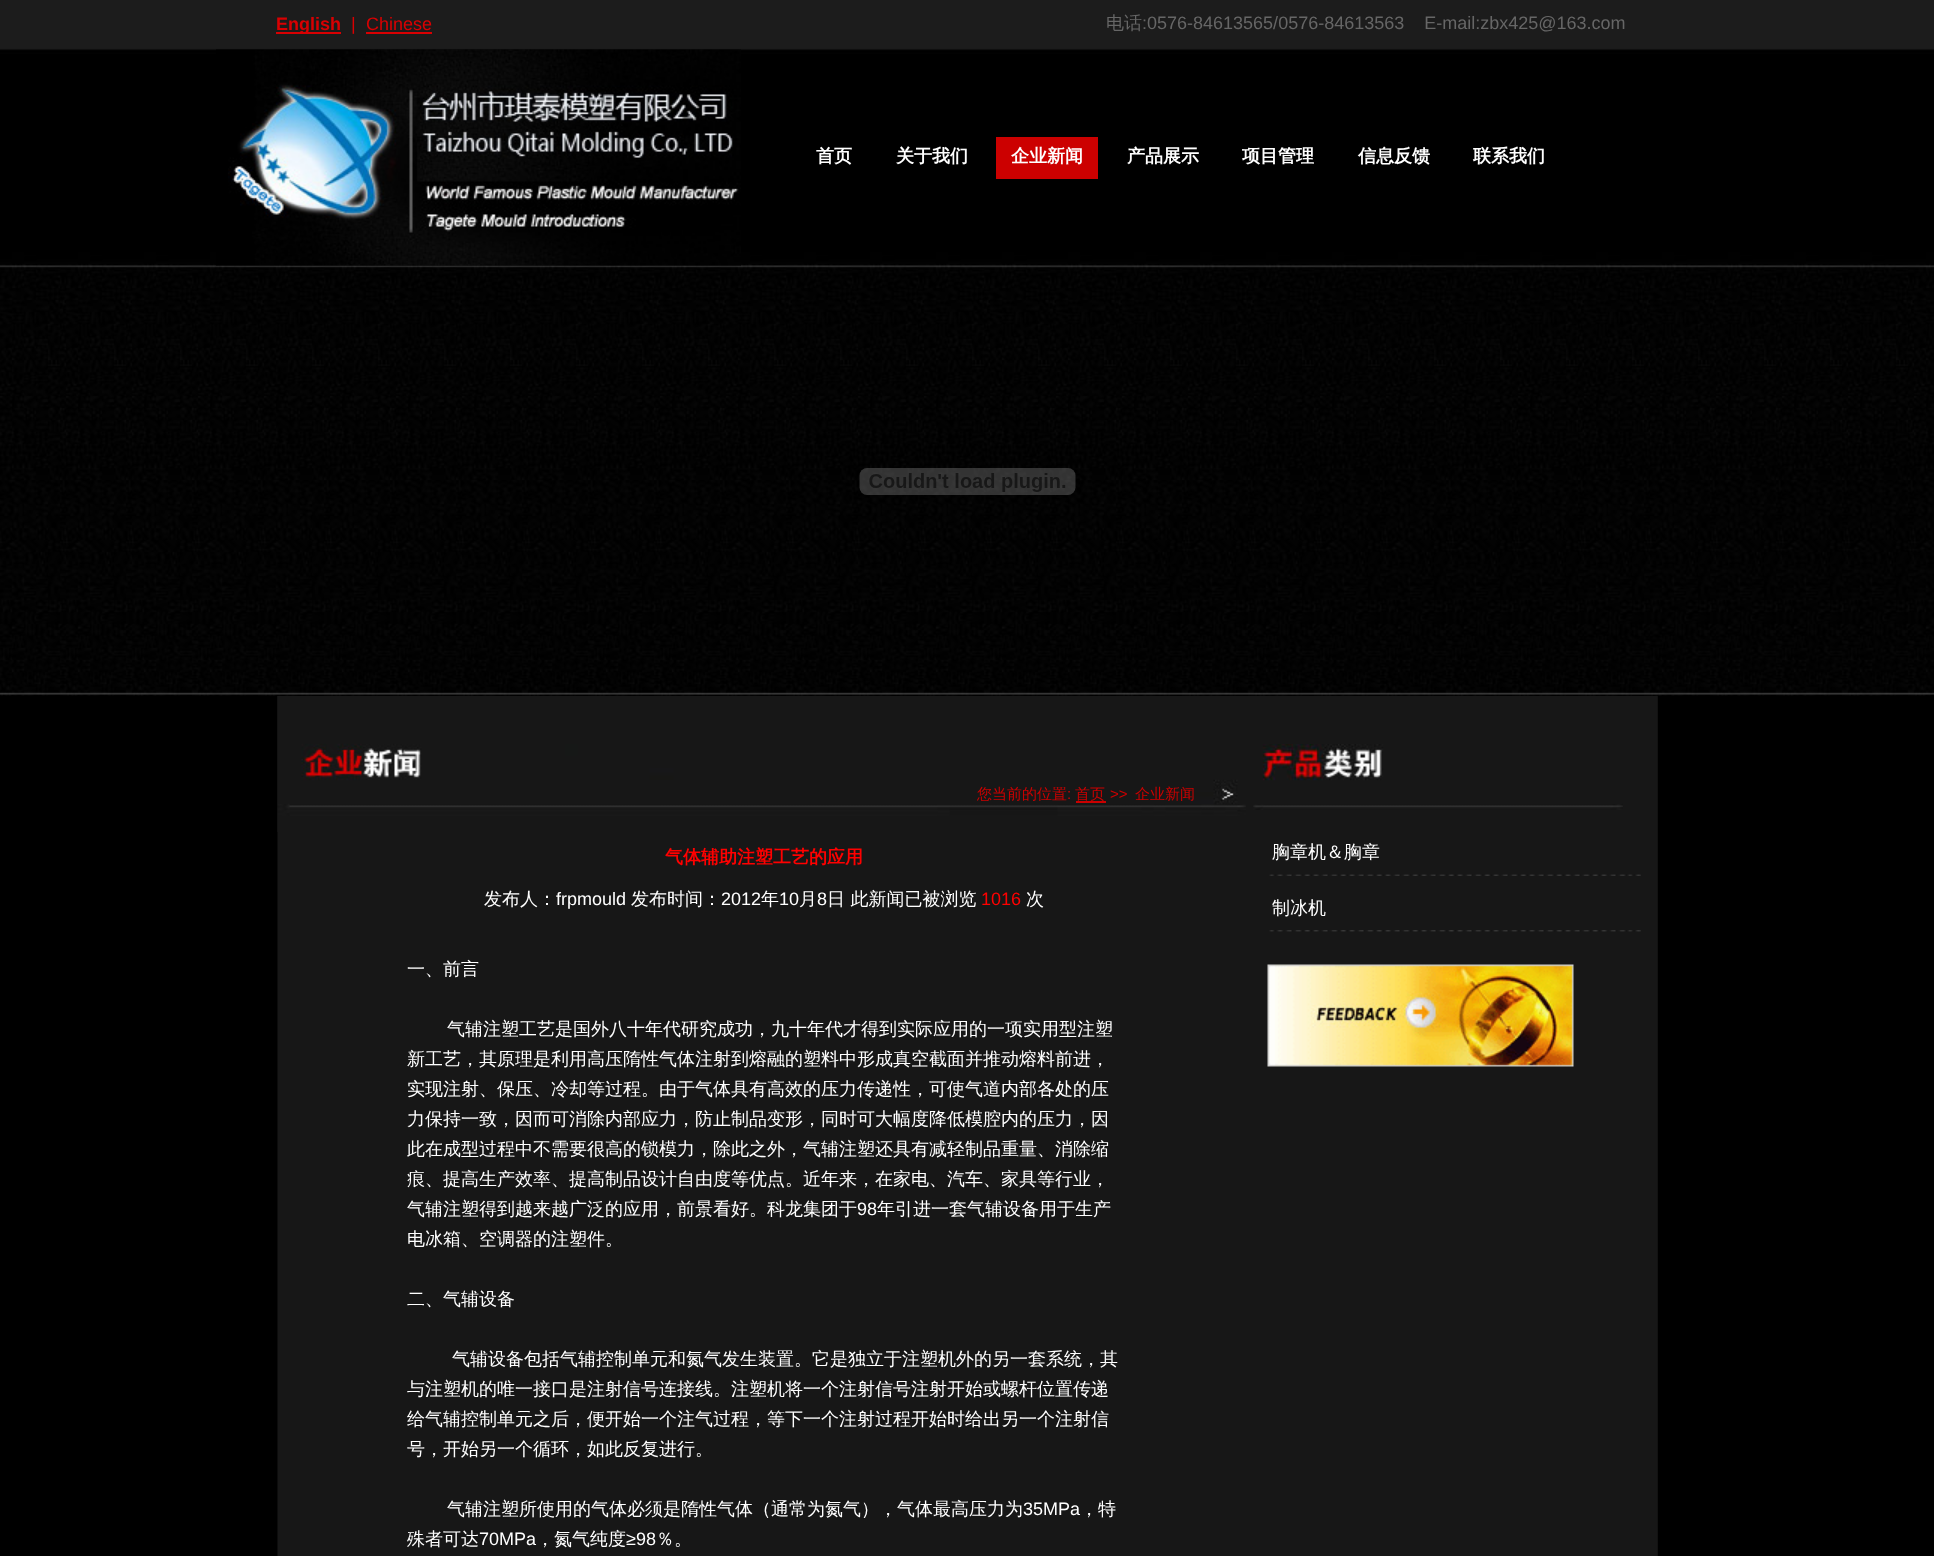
async function draw(canvas) {
	canvas.width = 1934;
	canvas.height = 1556;
	const c = canvas.getContext('2d');
	c.miterLimit = 4;
	c.fontKerning = 'normal';
	async function loadImage(src) {
		const img = new Image();
		img.src = src;
		await img.decode();
		return img;
	}

	c.fillStyle = '#000';
	c.fillRect(0, 0, 1934, 1556);
	c.drawImage(await loadImage('img1.png'), 0, 0, 1934, 696);
	c.fillStyle = '#d90002';
	c.fillRect(276, 32, 65, 2);
	c.font = 'bold 18px Liberation Sans';
	c.fillText('English', 276, 30);
	c.font = '18px Liberation Sans';
	c.fillText('|', 351, 30);
	c.fillText('Chinese', 366, 30);
	c.fillRect(366, 32, 66, 2);
	c.font = '500 18px WenQuanYi Zen Hei';
	c.fillStyle = '#666';
	c.fillText('电话', 1106, 29);
	c.font = '18px Liberation Sans';
	c.fillText(':0576-84613565/0576-84613563    E-mail:zbx425@163.com', 1142, 29);
	c.drawImage(await loadImage('img2.png'), 216, 49, 525, 217);
	c.font = 'bold 18px WenQuanYi Zen Hei';
	c.fillStyle = '#fff';
	c.fillText('首页', 816, 162);
	c.fillText('关于我们', 896, 162);
	c.fillStyle = '#c00';
	c.fillRect(996, 137, 102, 42);
	c.fillStyle = '#fff';
	for (const [text, x, y] of [
		['企业新闻', 1011, 162],
		['产品展示', 1127, 162],
		['项目管理', 1242, 162],
		['信息反馈', 1358, 162],
		['联系我们', 1473, 162],
	]) {
		c.fillText(text, x, y);
	}
	c.drawImage(await loadImage('img3.png'), 859, 468, 217, 27);
	c.fillStyle = '#171717';
	c.fillRect(278, 696, 1379, 860);
	c.fillStyle = '#0c0c0c';
	c.fillRect(277, 696, 1, 860);
	c.drawImage(await loadImage('img4.png'), 277, 696, 969, 136);
	c.font = '500 15px WenQuanYi Zen Hei';
	c.fillStyle = '#c00';
	c.fillText('您当前的位置', 977, 799);
	c.font = '15px Liberation Sans';
	c.fillText(':', 1067, 799);
	c.fillRect(1076, 801, 30, 2);
	c.font = '500 15px WenQuanYi Zen Hei';
	c.fillText('首页', 1075, 799);
	c.font = '15px Liberation Sans';
	c.fillText('>>', 1110, 799);
	c.font = '500 15px WenQuanYi Zen Hei';
	c.fillText('企业新闻', 1135, 799);
	c.font = 'bold 18px WenQuanYi Zen Hei';
	c.fillStyle = '#f00';
	c.fillText('气体辅助注塑工艺的应用', 665, 863);
	c.font = '500 18px WenQuanYi Zen Hei';
	c.fillStyle = '#fff';
	c.fillText('发布人：', 484, 905);
	c.font = '18px Liberation Sans';
	c.fillText('frpmould', 556, 905);
	c.font = '500 18px WenQuanYi Zen Hei';
	c.fillText('发布时间：', 631, 905);
	c.font = '18px Liberation Sans';
	c.fillText('2012', 721, 905);
	c.font = '500 18px WenQuanYi Zen Hei';
	c.fillText('年', 761, 905);
	c.font = '18px Liberation Sans';
	c.fillText('10', 779, 905);
	c.font = '500 18px WenQuanYi Zen Hei';
	c.fillText('月', 799, 905);
	c.font = '18px Liberation Sans';
	c.fillText('8', 817, 905);
	c.font = '500 18px WenQuanYi Zen Hei';
	c.fillText('日 此新闻已被浏览', 827, 905);
	c.font = '18px Liberation Sans';
	c.fillStyle = '#f00';
	c.fillText('1016', 981, 905);
	c.font = '500 18px WenQuanYi Zen Hei';
	c.fillStyle = '#fff';
	for (const [text, x, y] of [
		['次', 1026, 905],
		['一、前言', 407, 975],
		['气辅注塑工艺是国外八十年代研究成功，九十年代才得到实际应用的一项实用型注塑', 447, 1035],
		['新工艺，其原理是利用高压隋性气体注射到熔融的塑料中形成真空截面并推动熔料前进，', 407, 1065],
		['实现注射、保压、冷却等过程。由于气体具有高效的压力传递性，可使气道内部各处的压', 407, 1095],
		['力保持一致，因而可消除内部应力，防止制品变形，同时可大幅度降低模腔内的压力，因', 407, 1125],
		['此在成型过程中不需要很高的锁模力，除此之外，气辅注塑还具有减轻制品重量、消除缩', 407, 1155],
		['痕、提高生产效率、提高制品设计自由度等优点。近年来，在家电、汽车、家具等行业，', 407, 1185],
		['气辅注塑得到越来越广泛的应用，前景看好。科龙集团于', 407, 1215],
	]) {
		c.fillText(text, x, y);
	}
	c.font = '18px Liberation Sans';
	c.fillText('98', 857, 1215);
	c.font = '500 18px WenQuanYi Zen Hei';
	for (const [text, x, y] of [
		['年引进一套气辅设备用于生产', 877, 1215],
		['电冰箱、空调器的注塑件。', 407, 1245],
		['二、气辅设备', 407, 1305],
		['气辅设备包括气辅控制单元和氮气发生装置。它是独立于注塑机外的另一套系统，其', 452, 1365],
		['与注塑机的唯一接口是注射信号连接线。注塑机将一个注射信号注射开始或螺杆位置传递', 407, 1395],
		['给气辅控制单元之后，便开始一个注气过程，等下一个注射过程开始时给出另一个注射信', 407, 1425],
		['号，开始另一个循环，如此反复进行。', 407, 1455],
		['气辅注塑所使用的气体必须是隋性气体（通常为氮气），气体最高压力为', 447, 1515],
	]) {
		c.fillText(text, x, y);
	}
	c.font = '18px Liberation Sans';
	c.fillText('35MPa', 1023, 1515);
	c.font = '500 18px WenQuanYi Zen Hei';
	c.fillText('，特', 1080, 1515);
	c.fillText('殊者可达', 407, 1545);
	c.font = '18px Liberation Sans';
	c.fillText('70MPa', 479, 1545);
	c.font = '500 18px WenQuanYi Zen Hei';
	c.fillText('，氮气纯度', 536, 1545);
	c.font = '18px Liberation Sans';
	c.fillText('≥98', 626, 1545);
	c.font = '500 18px WenQuanYi Zen Hei';
	c.fillText('％。', 656, 1545);
	c.fillStyle = '#121212';
	c.fillRect(1657, 696, 1, 860);
	c.drawImage(await loadImage('img5.png'), 1253, 744, 370, 66);
	c.fillStyle = '#fff';
	c.fillText('胸章机＆胸章', 1272, 858);
	c.drawImage(await loadImage('img6.png'), 1269, 874, 372, 2);
	c.fillText('制冰机', 1272, 914);
	c.drawImage(await loadImage('img7.png'), 1269, 930, 372, 2);
	c.drawImage(await loadImage('img8.png'), 1267, 964, 307, 103);
}

draw(document.querySelector('canvas'));
